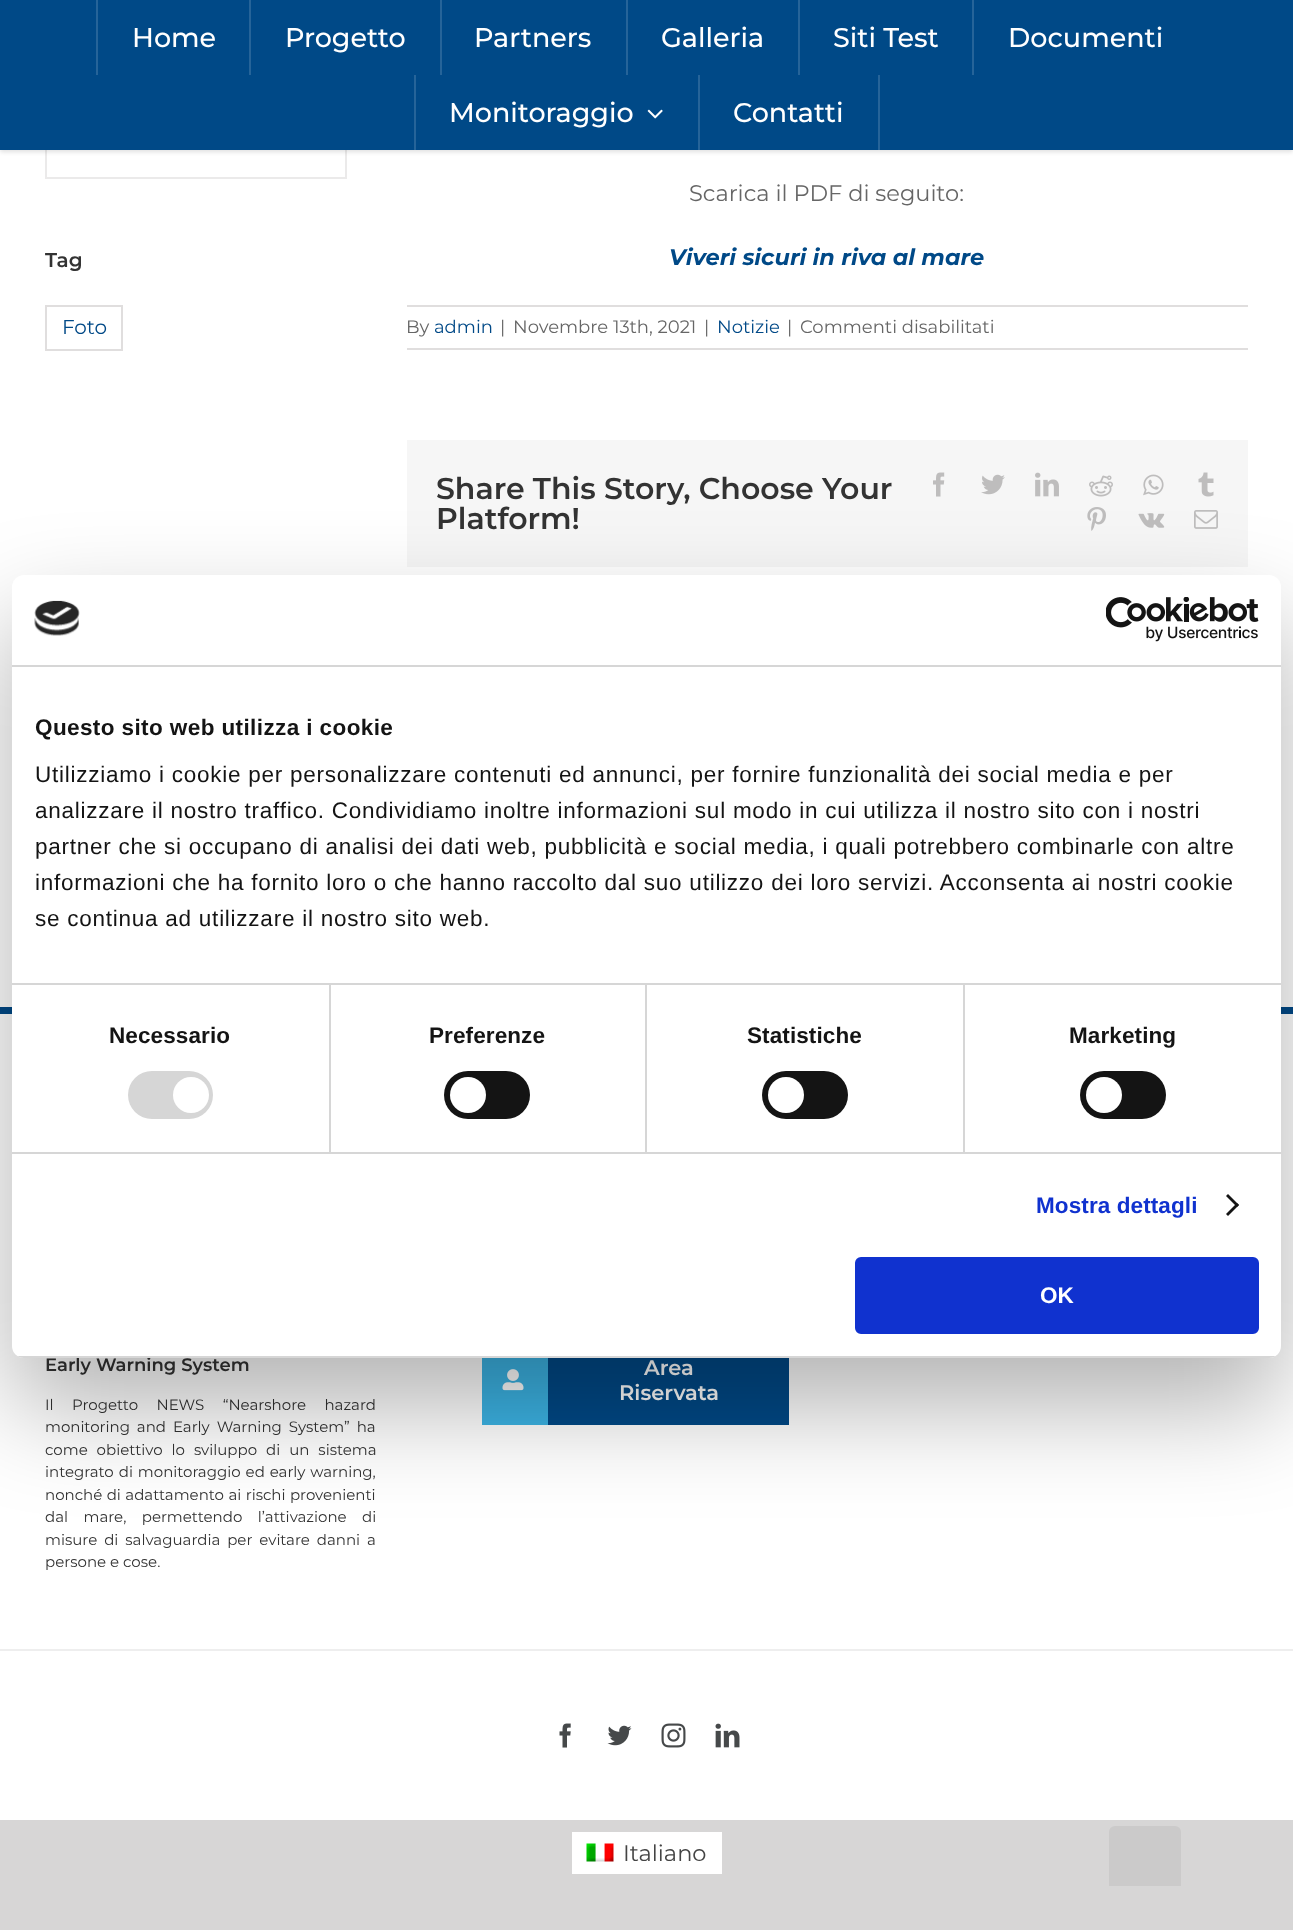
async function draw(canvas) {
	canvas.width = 1293;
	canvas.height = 1930;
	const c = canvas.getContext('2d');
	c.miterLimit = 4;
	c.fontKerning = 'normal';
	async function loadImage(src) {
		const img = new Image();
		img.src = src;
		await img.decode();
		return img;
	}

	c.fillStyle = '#d7d6d6';
	c.fillRect(0, 0, 1293, 1930);
	c.fillStyle = '#fff';
	c.fillRect(0, 150, 1293, 1670);
	c.strokeStyle = '#ebeaea';
	c.lineWidth = 2;
	c.strokeRect(46, -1, 300, 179);
	c.fillStyle = '#0000001f';
	c.filter = 'blur(2px)';
	c.beginPath();
	c.rect(0, 2, 1293, 150);
	c.fill();
	c.filter = 'none';
	c.fillStyle = '#004987';
	c.fillRect(0, 0, 1293, 150);
	c.fillStyle = '#266499';
	c.fillRect(96, 0, 2, 75);
	c.font = '100 27px "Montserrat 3"';
	c.fillStyle = '#fff';
	c.fillText('Home', 132, 47);
	c.fillStyle = '#266499';
	c.fillRect(249, 0, 2, 75);
	c.fillStyle = '#fff';
	c.fillText('Progetto', 285, 47);
	c.fillStyle = '#266499';
	c.fillRect(440, 0, 2, 75);
	c.fillStyle = '#fff';
	c.fillText('Partners', 474, 47);
	c.fillStyle = '#266499';
	c.fillRect(626, 0, 2, 75);
	c.fillStyle = '#fff';
	c.fillText('Galleria', 661, 47);
	c.fillStyle = '#266499';
	c.fillRect(798, 0, 2, 75);
	c.fillStyle = '#fff';
	c.fillText('Siti Test', 833, 47);
	c.fillStyle = '#266499';
	c.fillRect(972, 0, 2, 75);
	c.fillStyle = '#fff';
	c.fillText('Documenti', 1008, 47);
	c.fillStyle = '#266499';
	c.fillRect(414, 75, 2, 75);
	c.fillStyle = '#fff';
	c.fillText('Monitoraggio', 449, 122);
	c.drawImage(await loadImage('img1.png'), 647, 109, 16, 10);
	c.fillStyle = '#266499';
	c.fillRect(878, 75, 2, 75);
	c.fillRect(698, 75, 2, 75);
	c.fillStyle = '#fff';
	c.fillText('Contatti', 733, 122);
	c.font = '100 20px "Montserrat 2"';
	c.fillStyle = '#333';
	c.fillText('Tag', 45, 267);
	c.strokeStyle = '#e0dede';
	c.strokeRect(46, 306, 76, 44);
	c.font = '100 20px Montserrat';
	c.fillStyle = '#004987';
	c.fillText('Foto', 62, 334);
	c.font = '100 22.5px Montserrat';
	c.fillStyle = '#666';
	c.fillText('Scarica il PDF di seguito:', 689, 201);
	c.font = 'italic 100 22.5px Montserrat';
	c.fillStyle = '#004987';
	c.fillText('Viveri sicuri in riva al mare', 669, 265);
	c.fillStyle = '#e0dede';
	c.fillRect(407, 305, 841, 2);
	c.fillRect(407, 348, 841, 2);
	c.font = '100 18px Montserrat';
	c.fillStyle = '#666';
	c.fillText('By', 406, 333);
	c.fillStyle = '#004987';
	c.fillText('admin', 434, 333);
	c.fillStyle = '#666';
	for (const [text, x, y] of [
		['|', 500, 333],
		['Novembre 13th, 2021', 513, 333],
		['|', 704, 333],
	]) {
		c.fillText(text, x, y);
	}
	c.fillStyle = '#004987';
	c.fillText('Notizie', 717, 333);
	c.fillStyle = '#666';
	c.fillText('|', 787, 333);
	c.fillText('Commenti disabilitati', 800, 333);
	c.fillStyle = '#f6f6f6';
	c.fillRect(407, 440, 841, 127);
	c.font = '100 30px "Montserrat 2"';
	c.fillStyle = '#333';
	c.fillText('Share This Story, Choose Your', 436, 499);
	c.fillText('Platform!', 436, 529);
	c.drawImage(await loadImage('img2.png'), 933, 472, 12, 25);
	c.drawImage(await loadImage('img3.png'), 981, 474, 24, 21);
	c.drawImage(await loadImage('img4.png'), 1035, 472, 24, 25);
	c.drawImage(await loadImage('img5.png'), 1089, 475, 24, 22);
	c.drawImage(await loadImage('img6.png'), 1143, 474, 21, 22);
	c.drawImage(await loadImage('img7.png'), 1198, 472, 16, 25);
	c.drawImage(await loadImage('img8.png'), 1087, 507, 19, 24);
	c.drawImage(await loadImage('img9.png'), 1138, 513, 27, 15);
	c.drawImage(await loadImage('img10.png'), 1194, 510, 24, 19);
	c.fillStyle = '#004987';
	c.fillRect(0, 1007, 1293, 7);
	c.font = '100 18px "Montserrat 2"';
	c.fillStyle = '#333';
	c.fillText('Early Warning System', 45, 1371);
	c.wordSpacing = '14.5px';
	c.font = '100 15px Montserrat';
	c.fillText('Il Progetto NEWS “Nearshore hazard', 45, 1410);
	c.wordSpacing = '3px';
	c.fillText('monitoring and Early Warning System” ha', 45, 1432);
	c.wordSpacing = '5px';
	c.fillText('come obiettivo lo sviluppo di un sistema', 45, 1455);
	c.wordSpacing = '1px';
	c.fillText('integrato di monitoraggio ed early warning,', 45, 1477);
	c.wordSpacing = '0.5px';
	c.fillText('nonché di adattamento ai rischi provenienti', 45, 1500);
	c.wordSpacing = '11.5px';
	c.fillText('dal mare, permettendo l’attivazione di', 45, 1522);
	c.wordSpacing = '3px';
	c.fillText('misure di salvaguardia per evitare danni a', 45, 1545);
	c.wordSpacing = '0px';
	c.fillText('persone e cose.', 45, 1567);
	c.fillStyle = '#004987';
	c.fillRect(548, 1358, 241, 67);
	c.fillStyle = '#3cb4e5';
	c.fillRect(482, 1358, 66, 67);
	c.drawImage(await loadImage('img11.png'), 502, 1369, 22, 22);
	c.font = '100 21px "Montserrat 2"';
	c.fillStyle = '#fff';
	c.fillText('Area', 644, 1375);
	c.fillText('Riservata', 619, 1400);
	c.fillStyle = '#eee';
	c.fillRect(0, 1649, 1293, 2);
	c.drawImage(await loadImage('img12.png'), 559, 1723, 12, 25);
	c.drawImage(await loadImage('img13.png'), 607, 1725, 25, 21);
	c.drawImage(await loadImage('img14.png'), 661, 1723, 25, 25);
	c.drawImage(await loadImage('img15.png'), 715, 1723, 25, 25);
	c.fillStyle = '#0000004d';
	c.filter = 'blur(51px)';
	c.beginPath();
	c.roundRect(12, 623, 1269, 783, 12);
	c.fill();
	c.filter = 'none';
	c.fillStyle = '#fff';
	c.beginPath();
	c.roundRect(12, 575, 1269, 783, 12);
	c.fill();
	c.fillStyle = '#d6d6d6';
	c.fillRect(12, 665, 1269, 2);
	c.drawImage(await loadImage('img16.png'), 34, 600, 46, 36);
	c.drawImage(await loadImage('img17.png'), 1106, 597, 153, 45);
	for (const [x, y, w, h, color] of [
		[329, 984, 2, 168, '#d6d6d6'],
		[645, 984, 2, 168, '#d6d6d6'],
		[963, 984, 2, 168, '#d6d6d6'],
		[12, 983, 1269, 2, '#d6d6d6'],
	]) {
		c.fillStyle = color;
		c.fillRect(x, y, w, h);
	}
	c.letterSpacing = '0.4px';
	c.font = 'bold 22.5px Liberation Sans';
	c.fillStyle = '#141414';
	c.fillText('Questo sito web utilizza i cookie', 35, 735);
	c.letterSpacing = '0.75px';
	c.font = '22.5px Liberation Sans';
	for (const [text, x, y] of [
		['Utilizziamo i cookie per personalizzare contenuti ed annunci, per fornire funzionalità dei social media e per', 35, 782],
		['analizzare il nostro traffico. Condividiamo inoltre informazioni sul modo in cui utilizza il nostro sito con i nostri', 35, 818],
		['partner che si occupano di analisi dei dati web, pubblicità e social media, i quali potrebbero combinarle con altre', 35, 854],
		['informazioni che ha fornito loro o che hanno raccolto dal suo utilizzo dei loro servizi. Acconsenta ai nostri cookie', 35, 890],
		['se continua ad utilizzare il nostro sito web.', 35, 926],
	]) {
		c.fillText(text, x, y);
	}
	c.fillStyle = '#d6d6d6';
	c.fillRect(12, 1152, 1269, 2);
	c.letterSpacing = '0.1px';
	c.font = 'bold 22.5px Liberation Sans';
	c.fillStyle = '#141414';
	c.fillText('Necessario', 109, 1043);
	c.fillStyle = '#d6d6d6';
	c.beginPath();
	c.roundRect(128, 1071, 85, 48, 24);
	c.fill();
	c.fillStyle = '#fff';
	c.beginPath();
	c.arc(191, 1095, 18, 0, 2 * Math.PI);
	c.fill();
	c.fillStyle = '#141414';
	c.fillText('Preferenze', 429, 1043);
	c.beginPath();
	c.roundRect(444, 1071, 86, 48, 24);
	c.fill();
	c.fillStyle = '#fff';
	c.beginPath();
	c.arc(468, 1095, 18, 0, 2 * Math.PI);
	c.fill();
	c.fillStyle = '#141414';
	c.fillText('Statistiche', 747, 1043);
	c.beginPath();
	c.roundRect(762, 1071, 86, 48, 24);
	c.fill();
	c.fillStyle = '#fff';
	c.beginPath();
	c.arc(786, 1095, 18, 0, 2 * Math.PI);
	c.fill();
	c.fillStyle = '#141414';
	c.fillText('Marketing', 1069, 1043);
	c.beginPath();
	c.roundRect(1080, 1071, 86, 48, 24);
	c.fill();
	c.fillStyle = '#fff';
	c.beginPath();
	c.arc(1104, 1095, 18, 0, 2 * Math.PI);
	c.fill();
	c.fillStyle = '#1032cf';
	c.fillText('Mostra dettagli', 1036, 1213);
	c.fillStyle = '#141414';
	c.beginPath();
	c.moveTo(1228, 1194);
	c.lineTo(1239, 1205);
	c.lineTo(1237, 1207);
	c.lineTo(1226, 1196);
	c.closePath();
	c.fill();
	c.beginPath();
	c.moveTo(1237, 1203);
	c.lineTo(1239, 1205);
	c.lineTo(1228, 1216);
	c.lineTo(1226, 1214);
	c.closePath();
	c.fill();
	c.save();
	c.beginPath();
	c.roundRect(12, 575, 1269, 783, 12);
	c.clip();
	c.fillStyle = '#d6d6d6';
	c.fillRect(12, 1356, 1269, 2);
	c.restore();
	c.fillStyle = '#1032cf';
	c.beginPath();
	c.roundRect(856.5, 1258.5, 401, 74, 4.5);
	c.fill();
	c.strokeStyle = '#1032cf';
	c.lineWidth = 3;
	c.stroke();
	c.letterSpacing = '0px';
	c.fillStyle = '#fff';
	c.fillText('OK', 1040, 1303);
	c.fillRect(572, 1832, 150, 42);
	c.drawImage(await loadImage('img18.png'), 586, 1843, 28, 19);
	c.font = '100 22.5px Montserrat';
	c.fillStyle = '#444';
	c.fillText('Italiano', 623, 1861);
	c.fillStyle = '#cbcaca';
	c.beginPath();
	c.roundRect(1109, 1826, 72, 60, [6, 6, 0, 0]);
	c.fill();
}

draw(document.querySelector('canvas'));
